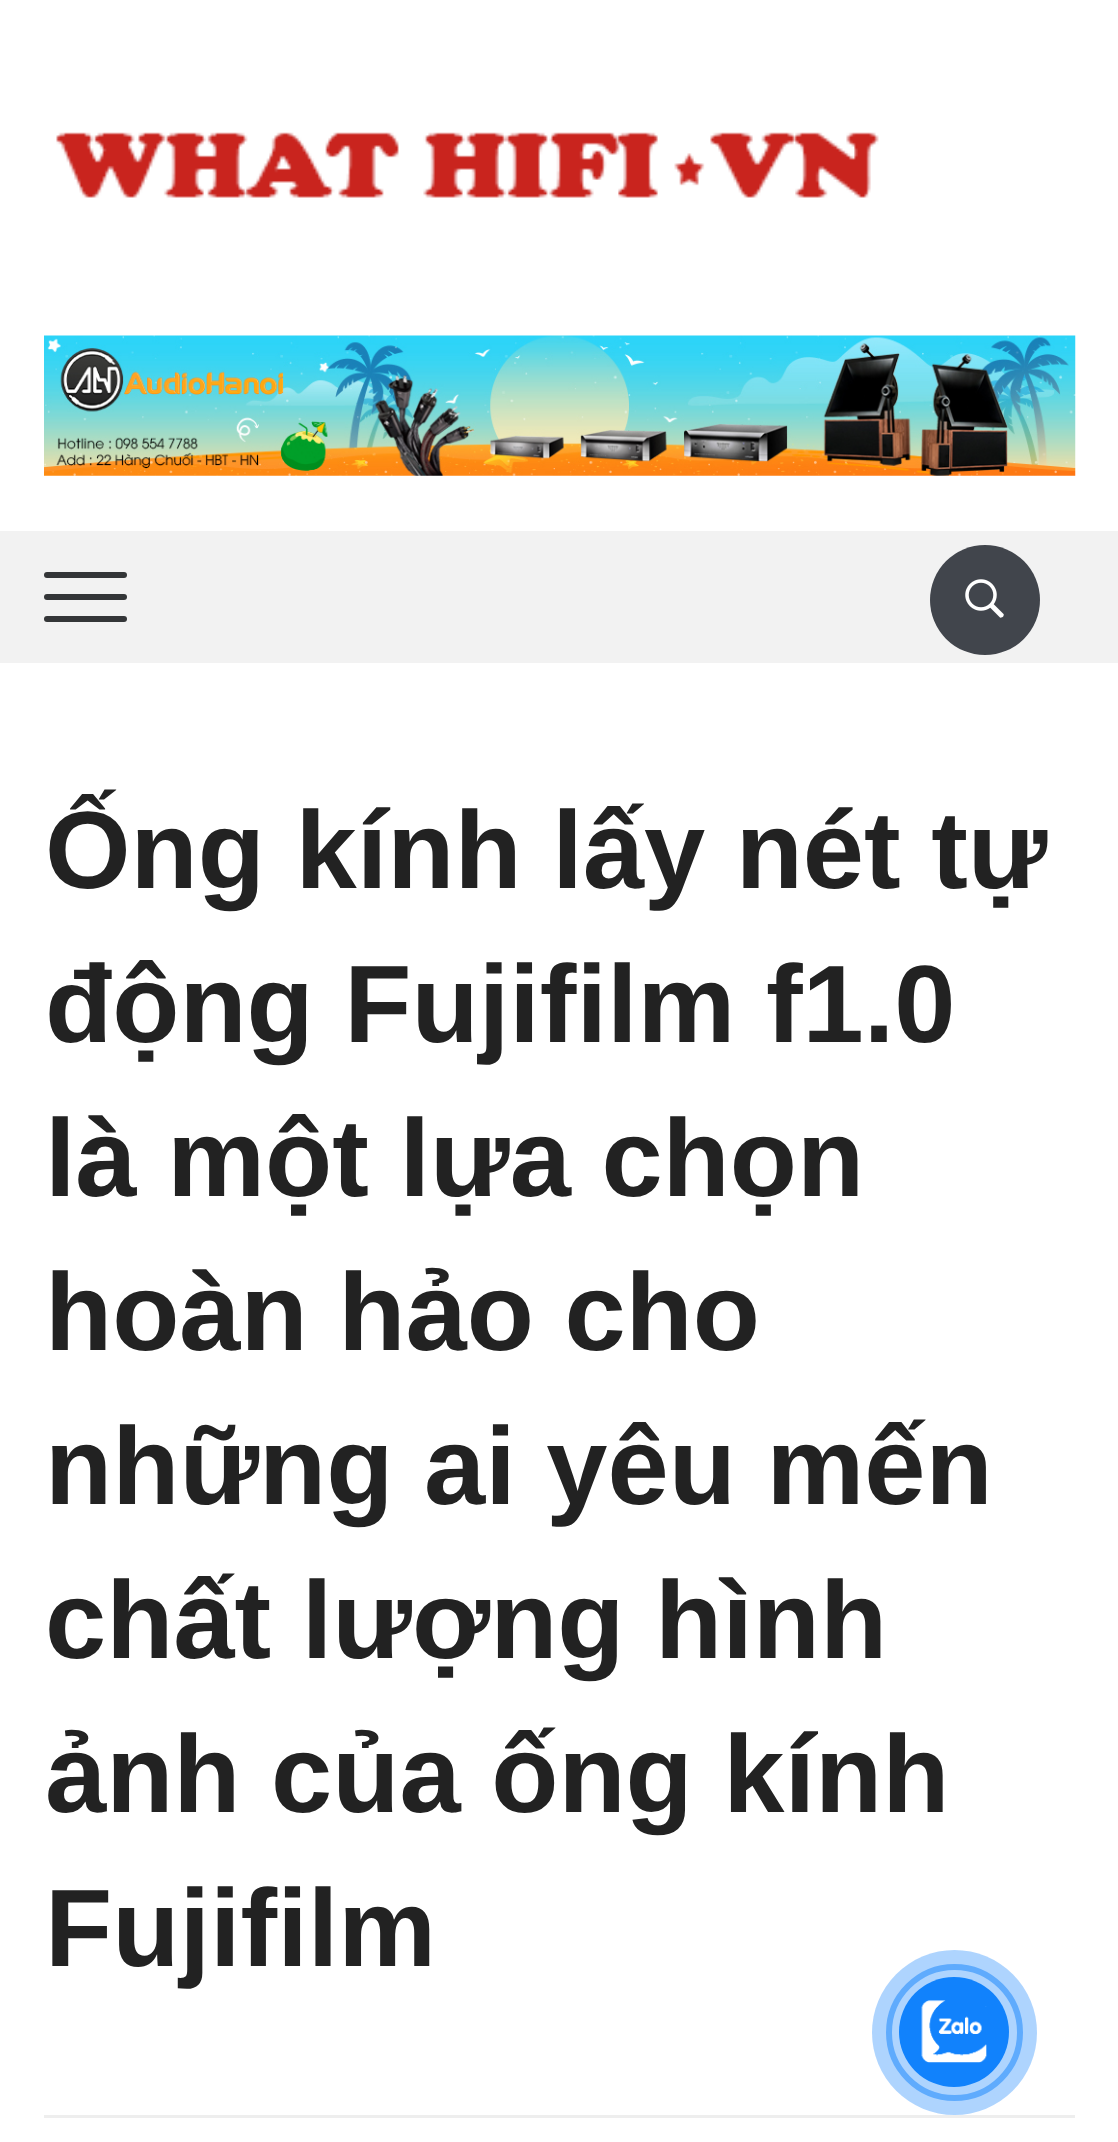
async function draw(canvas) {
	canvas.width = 1118;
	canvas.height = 2142;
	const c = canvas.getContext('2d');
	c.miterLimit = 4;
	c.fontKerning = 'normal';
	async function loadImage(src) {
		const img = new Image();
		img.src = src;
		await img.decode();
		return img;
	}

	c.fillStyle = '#fff';
	c.fillRect(0, 0, 1118, 2142);
	c.drawImage(await loadImage('img1.png'), 56, 132, 823, 66);
	c.drawImage(await loadImage('img2.png'), 44, 335, 1032, 141);
	c.fillStyle = '#f2f2f2';
	c.fillRect(0, 531, 1118, 132);
	c.fillStyle = '#343638';
	c.beginPath();
	c.roundRect(44, 572, 83, 6, 3);
	c.fill();
	c.beginPath();
	c.roundRect(44, 594, 83, 6, 3);
	c.fill();
	c.beginPath();
	c.roundRect(44, 616, 83, 6, 3);
	c.fill();
	c.fillStyle = '#41454c';
	c.beginPath();
	c.arc(985, 600, 55, 0, 2 * Math.PI);
	c.fill();
	c.drawImage(await loadImage('img3.png'), 965, 579, 39, 39);
	c.font = 'bold 110px Liberation Sans';
	c.fillStyle = '#222';
	for (const [text, x, y] of [
		['Ống kính lấy nét tự', 45, 888],
		['động Fujifilm f1.0', 45, 1042],
		['là một lựa chọn', 45, 1196],
		['hoàn hảo cho', 45, 1350],
		['những ai yêu mến', 45, 1504],
		['chất lượng hình', 45, 1658],
		['ảnh của ống kính', 45, 1812],
		['Fujifilm', 45, 1966],
	]) {
		c.fillText(text, x, y);
	}
	c.fillStyle = '#eee';
	c.fillRect(44, 2115, 1031, 3);
	c.beginPath();
	c.arc(954.5, 2032.5, 65.5, 0, 2 * Math.PI);
	c.strokeStyle = '#88c1fe';
	c.lineWidth = 6;
	c.stroke();
	c.fillStyle = '#1182fc57';
	c.beginPath();
	c.arc(954.5, 2032.5, 82.5, 0, 2 * Math.PI);
	c.fill();
	c.fillStyle = '#1182fc';
	c.beginPath();
	c.arc(954, 2032, 55, 0, 2 * Math.PI);
	c.fill();
	c.drawImage(await loadImage('img4.png'), 921, 2000, 66, 63);
}

draw(document.querySelector('canvas'));
